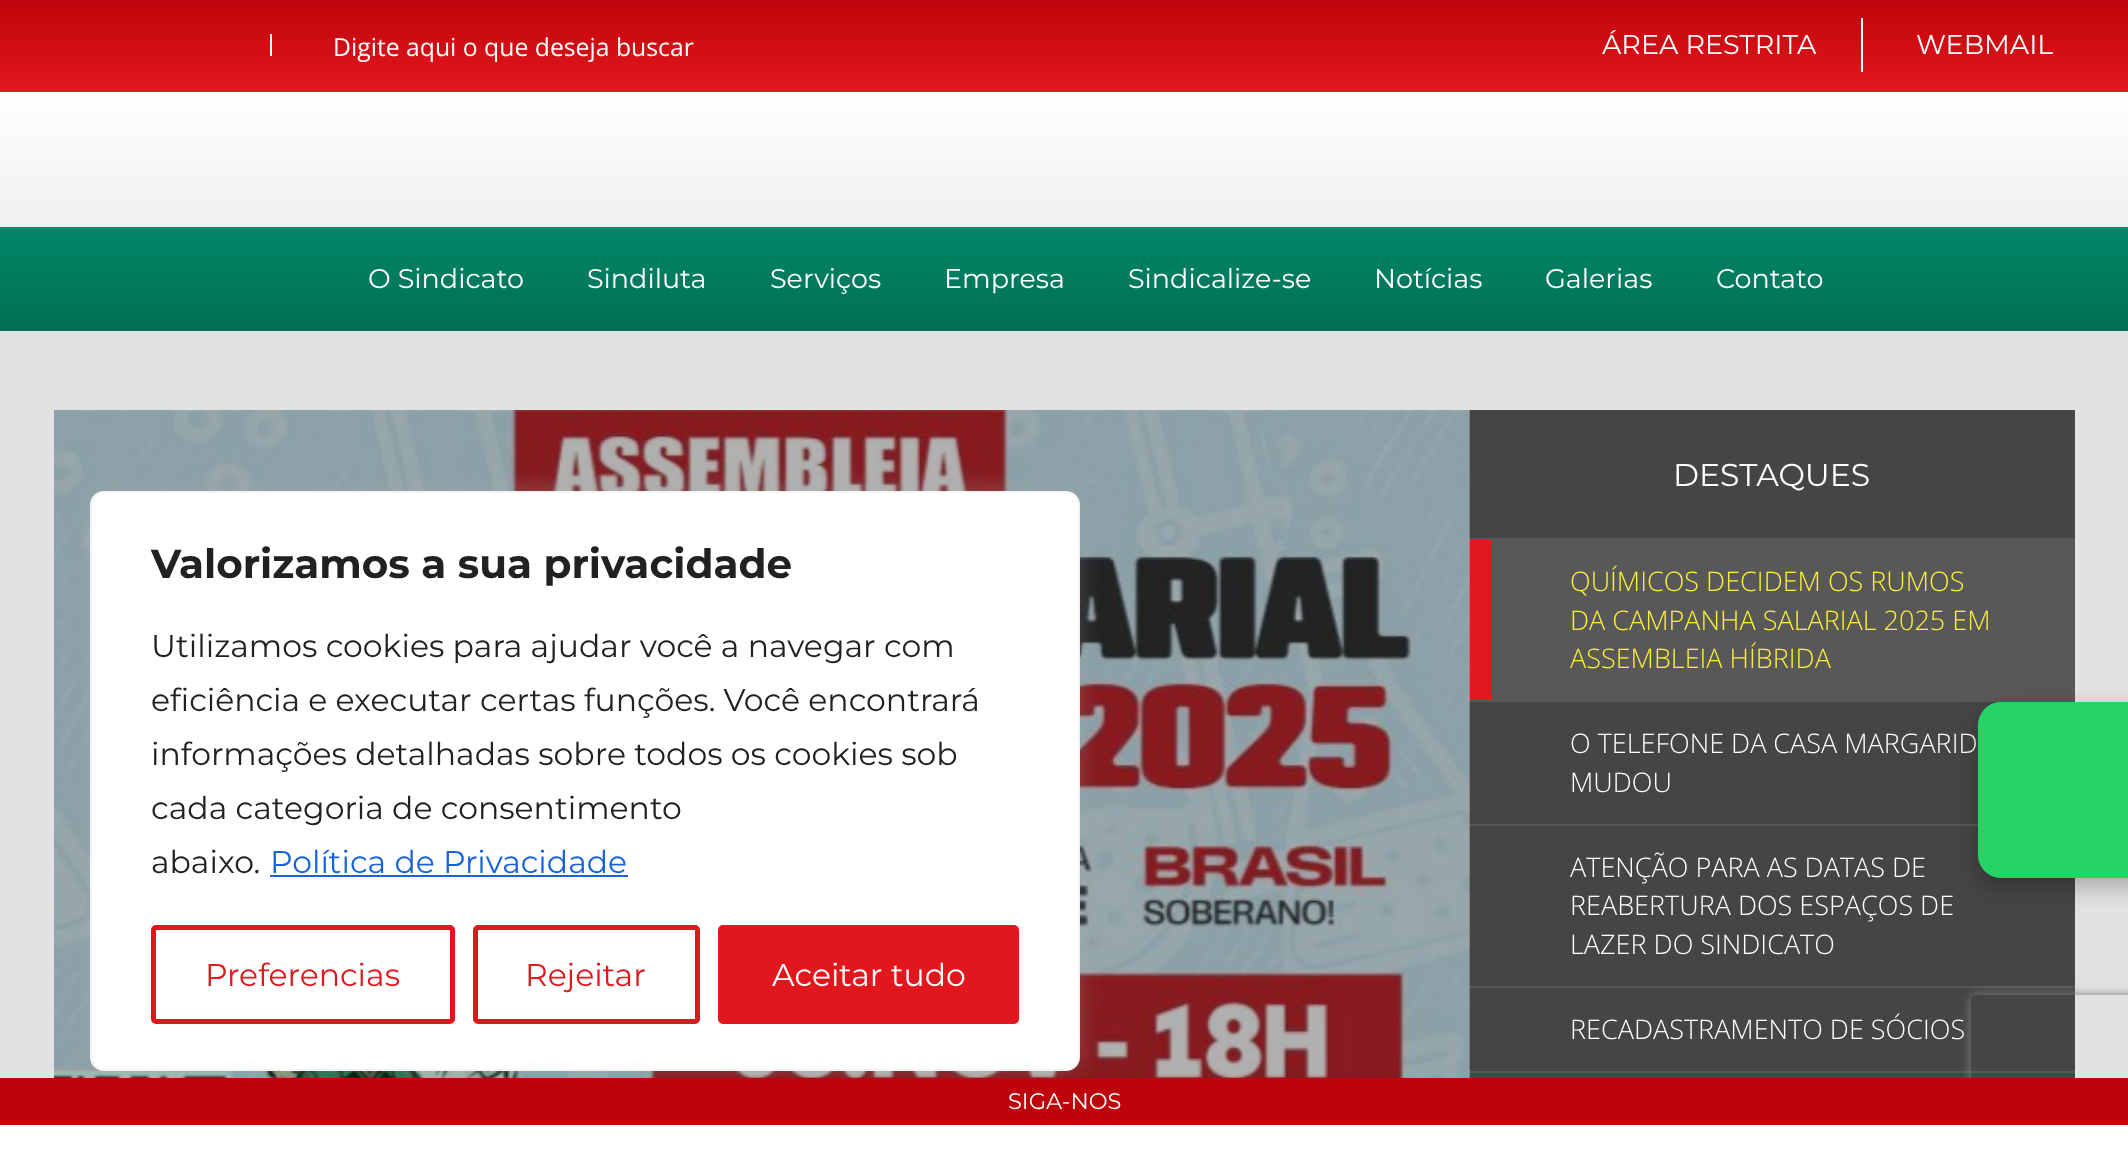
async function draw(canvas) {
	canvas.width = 2128;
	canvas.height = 1161;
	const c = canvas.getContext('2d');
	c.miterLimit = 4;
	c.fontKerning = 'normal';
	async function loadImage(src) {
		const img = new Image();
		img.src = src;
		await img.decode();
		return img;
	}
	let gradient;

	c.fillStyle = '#e2e2e2';
	c.fillRect(0, 0, 2128, 1161);
	c.fillStyle = '#9e9e9e';
	c.fillRect(1468, 410, 1, 668);
	gradient = c.createLinearGradient(1064, 0, 1064, 92);
	gradient.addColorStop(0, '#be040a');
	gradient.addColorStop(1, '#e3181e');
	c.fillStyle = gradient;
	c.fillRect(0, 0, 2128, 92);
	c.fillStyle = '#fff';
	c.fillRect(270, 34, 2, 22);
	c.font = '24.75px Open Sans';
	c.fillText('Digite aqui o que deseja buscar', 333, 56);
	c.fillRect(1861, 18, 2, 54);
	c.font = '27px Montserrat';
	c.fillText('ÁREA RESTRITA', 1602, 54);
	c.fillText('WEBMAIL', 1916, 54);
	gradient = c.createLinearGradient(1064, 92, 1064, 227);
	gradient.addColorStop(0, '#fff');
	gradient.addColorStop(1, '#f0f0f0');
	c.fillStyle = gradient;
	c.fillRect(0, 92, 2128, 135);
	gradient = c.createLinearGradient(1064, 227, 1064, 331);
	gradient.addColorStop(0, '#008767');
	gradient.addColorStop(1, '#016e54');
	c.fillStyle = gradient;
	c.fillRect(0, 227, 2128, 104);
	c.fillStyle = '#fff';
	for (const [text, x, y] of [
		['O Sindicato', 368, 288],
		['Sindiluta', 587, 288],
		['Serviços', 770, 288],
		['Empresa', 944, 288],
		['Sindicalize-se', 1128, 288],
		['Notícias', 1374, 288],
		['Galerias', 1545, 288],
		['Contato', 1716, 288],
	]) {
		c.fillText(text, x, y);
	}
	for (const [x, y, w, h, color] of [
		[1469, 410, 606, 668, '#454545'],
		[1469, 538, 606, 2, '#585858'],
		[1469, 700, 606, 2, '#585858'],
		[1469, 540, 23, 160, '#e3181e'],
		[1469, 824, 509, 2, '#585858'],
		[1469, 986, 606, 2, '#585858'],
		[1469, 1071, 606, 2, '#585858'],
	]) {
		c.fillStyle = color;
		c.fillRect(x, y, w, h);
	}
	c.drawImage(await loadImage('img1.png'), 54, 410, 1416, 668);
	c.fillStyle = '#acabab4d';
	c.filter = 'blur(11px)';
	c.beginPath();
	c.roundRect(90, 488, 990, 581, 14);
	c.fill();
	c.filter = 'none';
	c.fillStyle = '#fff';
	c.beginPath();
	c.roundRect(91, 492, 988, 578, 13);
	c.fill();
	c.strokeStyle = '#f4f4f4';
	c.lineWidth = 2;
	c.stroke();
	c.font = 'bold 40.5px Montserrat';
	c.fillStyle = '#212121';
	c.fillText('Valorizamos a sua privacidade', 151, 578);
	c.font = '31.5px Montserrat';
	for (const [text, x, y] of [
		['Utilizamos cookies para ajudar você a navegar com', 151, 657],
		['eficiência e executar certas funções. Você encontrará', 151, 711],
		['informações detalhadas sobre todos os cookies sob', 151, 765],
		['cada categoria de consentimento', 151, 819],
		['abaixo.', 151, 873],
	]) {
		c.fillText(text, x, y);
	}
	c.fillStyle = '#1863dc';
	c.fillText('Política de Privacidade', 270, 873);
	c.fillRect(270, 875, 358, 2);
	c.beginPath();
	c.roundRect(153.5, 927.5, 299, 94, 2.5);
	c.strokeStyle = '#e1171d';
	c.lineWidth = 5;
	c.stroke();
	c.fillStyle = '#e1171d';
	c.fillText('Preferencias', 205, 986);
	c.beginPath();
	c.roundRect(475.5, 927.5, 222, 94, 2.5);
	c.stroke();
	c.fillText('Rejeitar', 525, 986);
	c.beginPath();
	c.roundRect(720.5, 927.5, 296, 94, 2.5);
	c.fill();
	c.stroke();
	c.fillStyle = '#fff';
	c.fillText('Aceitar tudo', 772, 986);
	c.fillText('DESTAQUES', 1673, 486);
	c.fillStyle = '#585858';
	c.fillRect(1492, 540, 583, 160);
	c.font = '300 27px Open Sans';
	c.fillStyle = '#fbf138';
	for (const [text, x, y] of [
		['QUÍMICOS DECIDEM OS RUMOS', 1570, 591],
		['DA CAMPANHA SALARIAL 2025 EM', 1570, 630],
		['ASSEMBLEIA HÍBRIDA', 1570, 668],
	]) {
		c.fillText(text, x, y);
	}
	c.fillStyle = '#fff';
	for (const [text, x, y] of [
		['O TELEFONE DA CASA MARGARID', 1570, 753],
		['MUDOU', 1570, 792],
		['ATENÇÃO PARA AS DATAS DE', 1570, 877],
		['REABERTURA DOS ESPAÇOS DE', 1570, 915],
		['LAZER DO SINDICATO', 1570, 954],
		['RECADASTRAMENTO DE SÓCIOS', 1570, 1039],
	]) {
		c.fillText(text, x, y);
	}
	c.fillStyle = '#00000040';
	c.filter = 'blur(11px)';
	c.beginPath();
	c.roundRect(1978, 711, 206, 176, 23);
	c.fill();
	c.filter = 'none';
	c.fillStyle = '#25d366';
	c.beginPath();
	c.moveTo(2001, 702);
	c.lineTo(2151, 702);
	c.lineTo(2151, 878);
	c.lineTo(2001, 878);
	c.bezierCurveTo(1988.5, 878, 1978, 867.5, 1978, 855);
	c.lineTo(1978, 725);
	c.bezierCurveTo(1978, 712.5, 1988.5, 702, 2001, 702);
	c.closePath();
	c.fill();
	c.save();
	c.beginPath();
	c.moveTo(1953, 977);
	c.lineTo(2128, 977);
	c.lineTo(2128, 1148);
	c.lineTo(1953, 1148);
	c.closePath();
	c.moveTo(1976, 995);
	c.lineTo(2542, 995);
	c.bezierCurveTo(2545, 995, 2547, 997, 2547, 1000);
	c.lineTo(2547, 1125);
	c.bezierCurveTo(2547, 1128, 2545, 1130, 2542, 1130);
	c.lineTo(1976, 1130);
	c.bezierCurveTo(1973, 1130, 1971, 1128, 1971, 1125);
	c.lineTo(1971, 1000);
	c.bezierCurveTo(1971, 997, 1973, 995, 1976, 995);
	c.closePath();
	c.clip('evenodd');
	c.fillStyle = '#808080';
	c.filter = 'blur(5.5px)';
	c.beginPath();
	c.roundRect(1971, 995, 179, 135, 5);
	c.fill();
	c.filter = 'none';
	c.restore();
	c.fillStyle = '#fff';
	c.fillRect(0, 1125, 2128, 36);
	c.fillStyle = '#be040a';
	c.fillRect(0, 1078, 2128, 47);
	c.font = '22.5px Montserrat';
	c.fillStyle = '#fff';
	c.fillText('SIGA-NOS', 1008, 1109);
}

draw(document.querySelector('canvas'));
